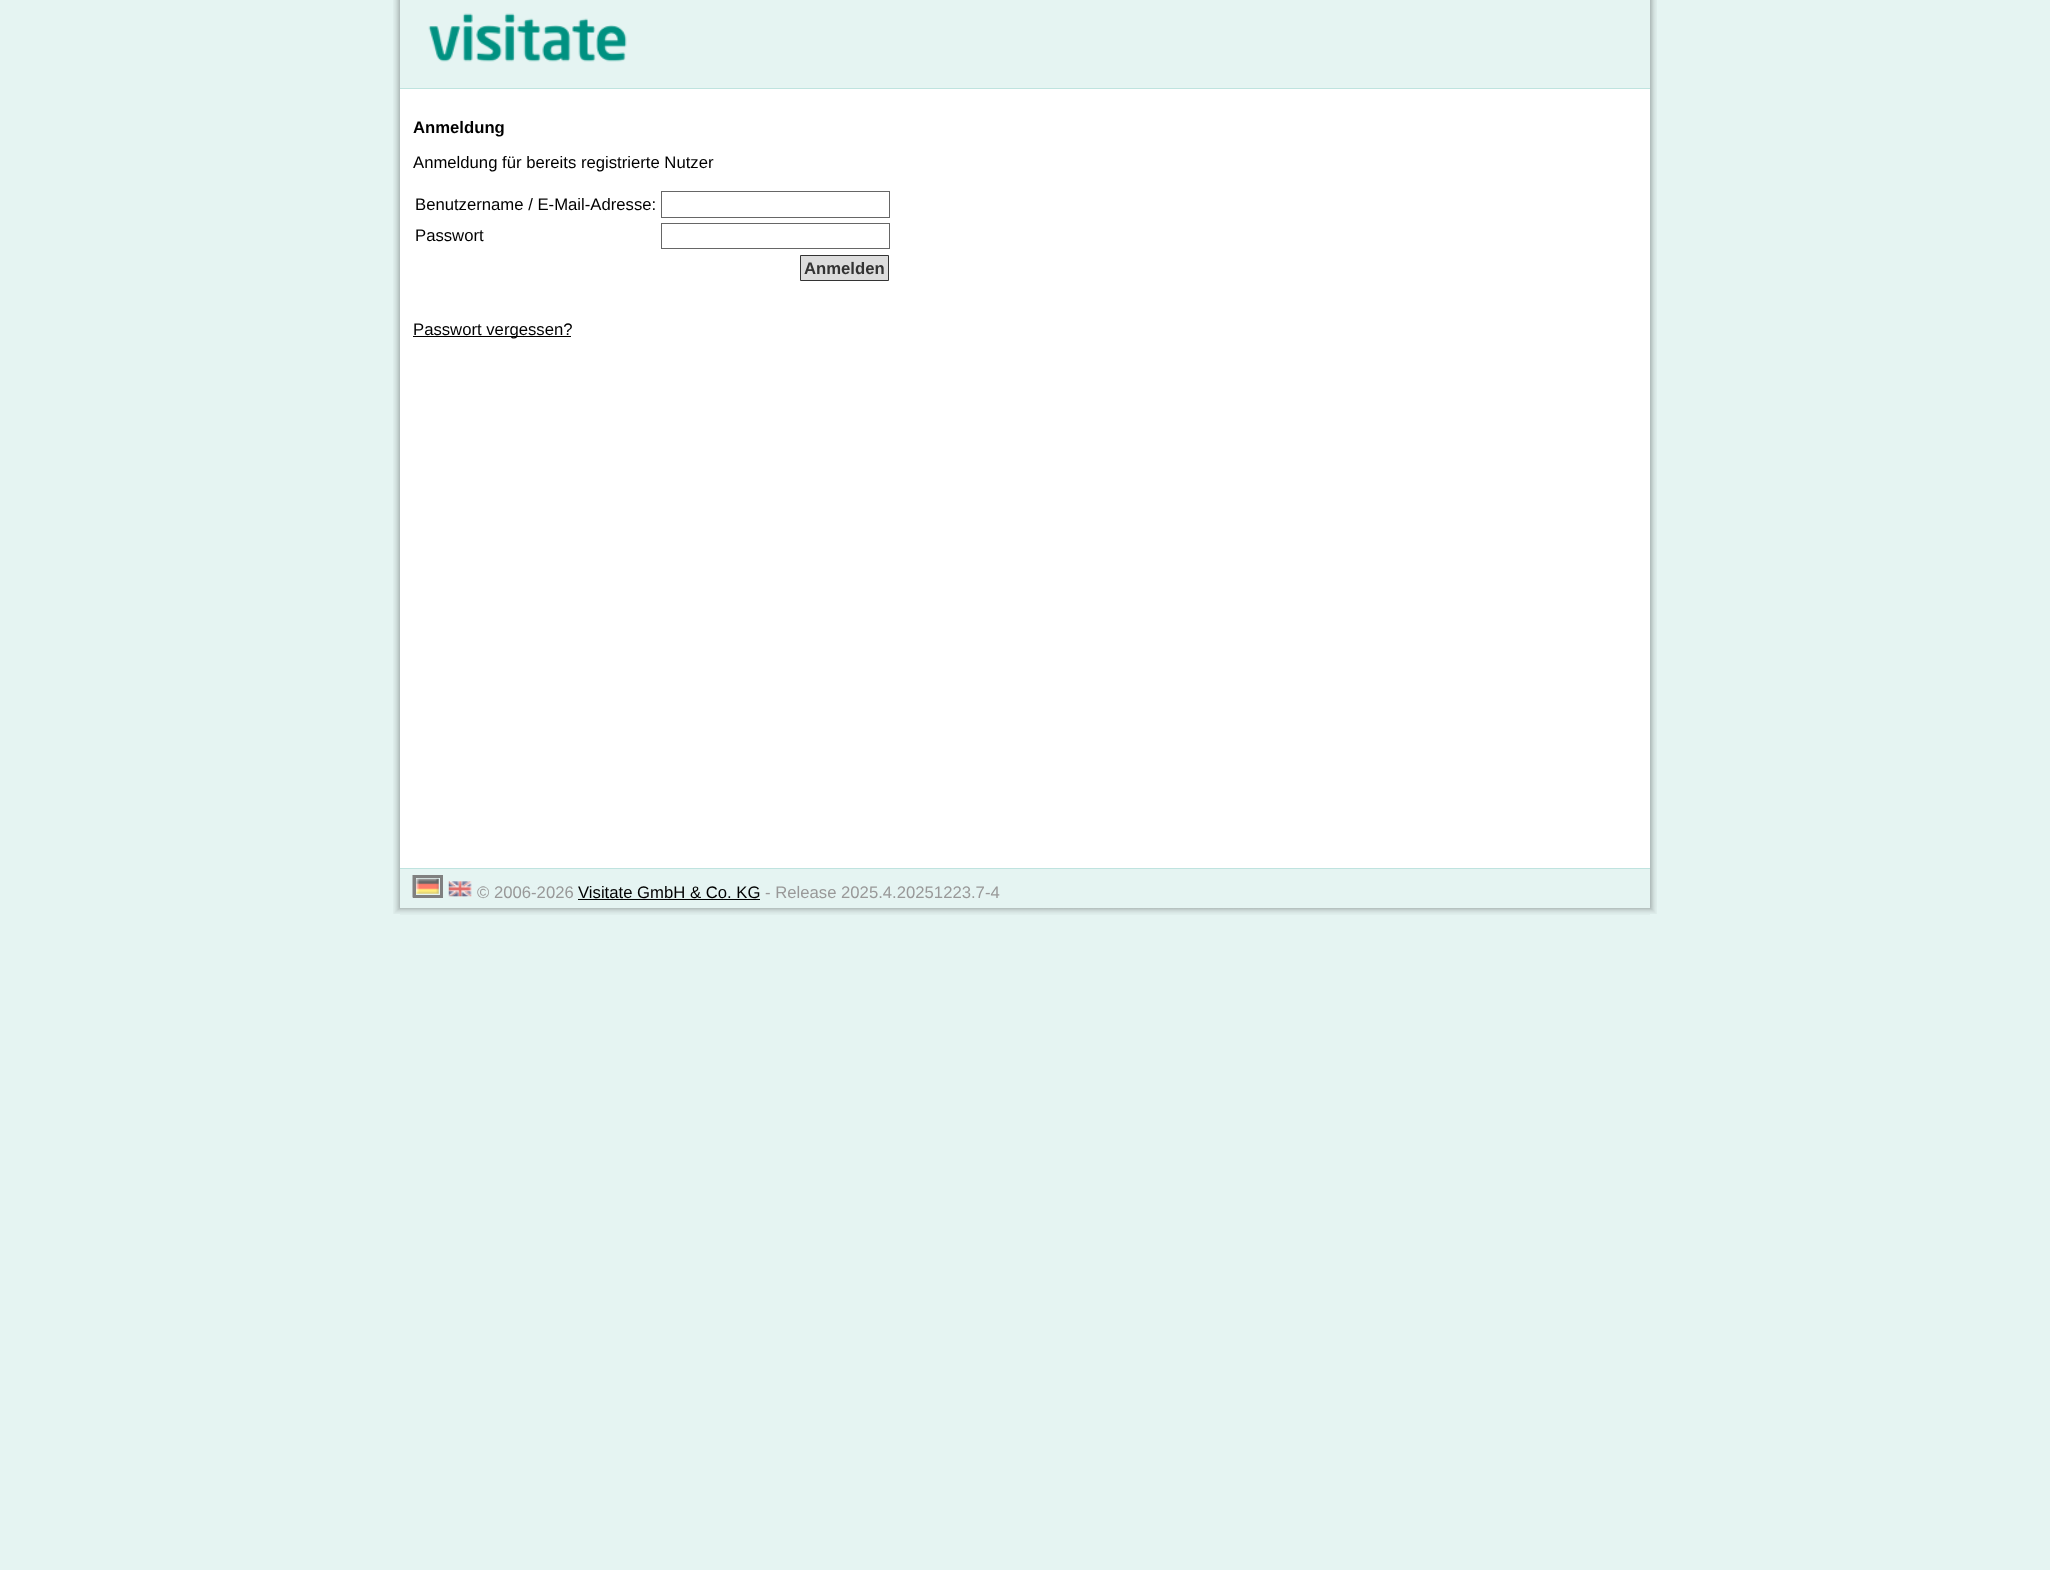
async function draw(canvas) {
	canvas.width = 2050;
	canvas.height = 1570;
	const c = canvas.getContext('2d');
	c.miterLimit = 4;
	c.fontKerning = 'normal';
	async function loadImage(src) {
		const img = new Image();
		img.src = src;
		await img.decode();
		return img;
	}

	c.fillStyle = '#e5f4f2';
	c.fillRect(0, 0, 2050, 1570);
	c.drawImage(await loadImage('img1.png'), 393, 0, 7, 908);
	c.drawImage(await loadImage('img2.png'), 1650, 0, 7, 908);
	c.fillStyle = '#fff';
	c.fillRect(400, 89, 1250, 779);
	c.drawImage(await loadImage('img3.png'), 428, 13, 199, 49);
	c.fillStyle = '#bfe3df';
	c.fillRect(400, 88, 1250, 1);
	c.font = 'bold 16.7px Liberation Sans';
	c.fillStyle = '#000';
	c.fillText('Anmeldung', 413, 133);
	c.font = '16.7px Liberation Sans';
	c.fillText('Anmeldung für bereits registrierte Nutzer', 413, 168);
	c.fillText('Benutzername / E-Mail-Adresse:', 415, 210);
	c.strokeStyle = '#666';
	c.strokeRect(661.5, 191.5, 228, 26);
	c.fillText('Passwort', 415, 241);
	c.strokeRect(661.5, 223.5, 228, 25);
	c.fillStyle = '#ddd';
	c.beginPath();
	c.rect(800.5, 255.5, 88, 25);
	c.fill();
	c.strokeStyle = '#333';
	c.stroke();
	c.font = 'bold 16.7px Liberation Sans';
	c.fillStyle = '#333';
	c.fillText('Anmelden', 804, 274);
	c.fillStyle = '#000';
	c.fillRect(413, 336, 158, 1);
	c.font = '16.7px Liberation Sans';
	c.fillText('Passwort vergessen?', 413, 335);
	c.fillStyle = '#bfe3df';
	c.fillRect(400, 868, 1250, 1);
	c.strokeStyle = '#808080';
	c.lineWidth = 3;
	c.strokeRect(414.5, 876.5, 27, 20);
	c.drawImage(await loadImage('img4.png'), 412, 875, 27, 23);
	c.drawImage(await loadImage('img5.png'), 448, 881, 24, 16);
	c.fillStyle = '#999';
	c.fillText('© 2006-2026', 477, 898);
	c.fillStyle = '#000';
	c.fillText('Visitate GmbH & Co. KG', 578, 898);
	c.fillRect(578, 899, 182, 1);
	c.fillStyle = '#999';
	c.fillText('- Release 2025.4.20251223.7-4', 765, 898);
	c.drawImage(await loadImage('img6.png'), 393, 907, 7, 7);
	c.drawImage(await loadImage('img7.png'), 400, 908, 1250, 7);
	c.drawImage(await loadImage('img8.png'), 1650, 907, 7, 7);
}

draw(document.querySelector('canvas'));
